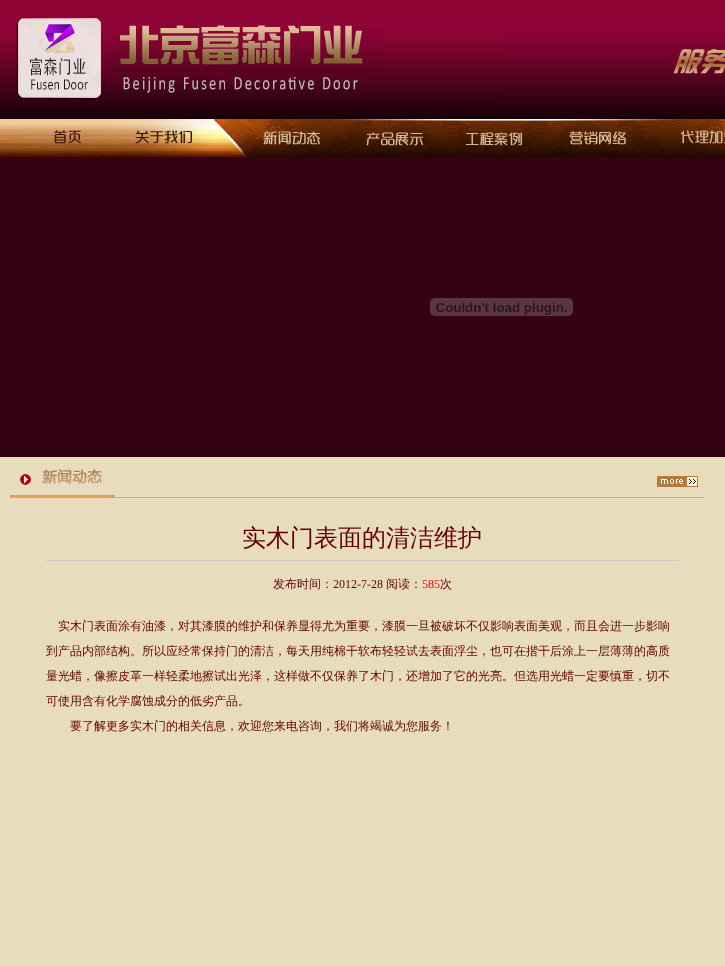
async function draw(canvas) {
	canvas.width = 725;
	canvas.height = 966;
	const c = canvas.getContext('2d');
	c.miterLimit = 4;
	c.fontKerning = 'normal';
	async function loadImage(src) {
		const img = new Image();
		img.src = src;
		await img.decode();
		return img;
	}

	c.fillStyle = '#330313';
	c.fillRect(0, 0, 725, 966);
	c.drawImage(await loadImage('img1.png'), 0, 0, 725, 119);
	c.drawImage(await loadImage('img2.png'), 0, 119, 114, 38);
	c.drawImage(await loadImage('img3.png'), 114, 119, 129, 38);
	c.drawImage(await loadImage('img4.png'), 243, 119, 104, 38);
	c.drawImage(await loadImage('img5.png'), 347, 119, 98, 38);
	c.drawImage(await loadImage('img6.png'), 445, 119, 107, 38);
	c.drawImage(await loadImage('img7.png'), 552, 119, 107, 38);
	c.drawImage(await loadImage('img8.png'), 659, 119, 66, 38);
	c.drawImage(await loadImage('img9.png'), 430, 298, 143, 18);
	c.fillStyle = '#e7dcbc';
	c.fillRect(0, 457, 725, 509);
	c.drawImage(await loadImage('img10.png'), 10, 469, 695, 29);
	c.font = '500 24px WenQuanYi Zen Hei';
	c.fillStyle = '#600';
	c.fillText('实木门表面的清洁维护', 242, 546);
	c.fillStyle = '#ccc';
	c.fillRect(46, 560, 633, 1);
	c.font = '500 12px WenQuanYi Zen Hei';
	c.fillStyle = '#600';
	c.fillText('发布时间：', 273, 588);
	c.font = '12px Liberation Serif';
	c.fillText('2012-7-28', 333, 588);
	c.font = '500 12px WenQuanYi Zen Hei';
	c.fillText('阅读：', 386, 588);
	c.font = '12px Liberation Serif';
	c.fillStyle = '#f00';
	c.fillText('585', 422, 588);
	c.font = '500 12px WenQuanYi Zen Hei';
	c.fillStyle = '#600';
	for (const [text, x, y] of [
		['次', 440, 588],
		['实木门表面涂有油漆，对其漆膜的维护和保养显得尤为重要，漆膜一旦被破坏不仅影响表面美观，而且会进一步影响', 58, 630],
		['到产品内部结构。所以应经常保持门的清洁，每天用纯棉干软布轻轻试去表面浮尘，也可在揩干后涂上一层薄薄的高质', 46, 655],
		['量光蜡，像擦皮革一样轻柔地擦试出光泽，这样做不仅保养了木门，还增加了它的光亮。但选用光蜡一定要慎重，切不', 46, 680],
		['可使用含有化学腐蚀成分的低劣产品。', 46, 705],
		['要了解更多实木门的相关信息，欢迎您来电咨询，我们将竭诚为您服务！', 70, 730],
	]) {
		c.fillText(text, x, y);
	}
}

draw(document.querySelector('canvas'));
